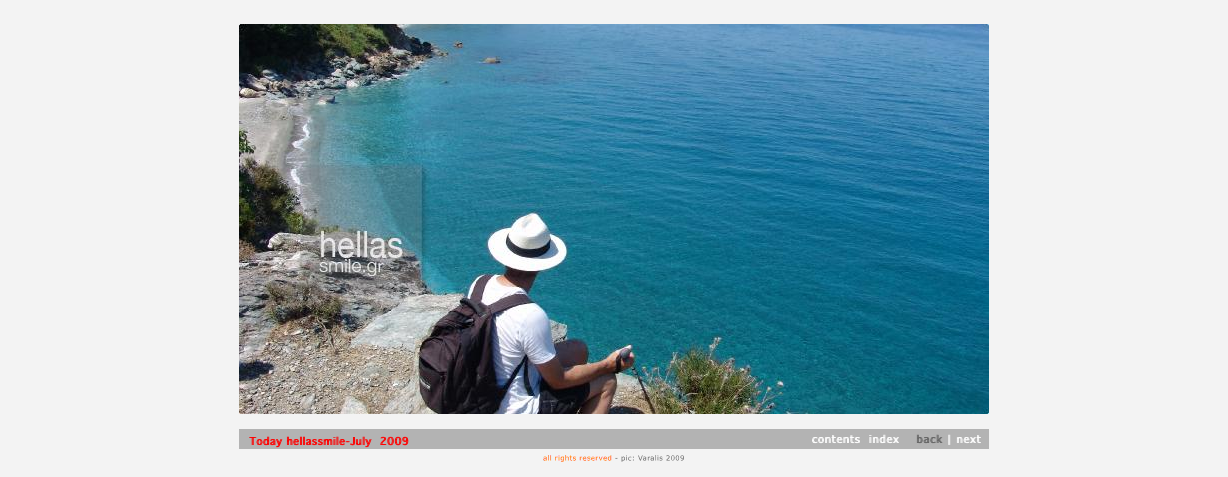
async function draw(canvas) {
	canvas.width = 1228;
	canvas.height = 477;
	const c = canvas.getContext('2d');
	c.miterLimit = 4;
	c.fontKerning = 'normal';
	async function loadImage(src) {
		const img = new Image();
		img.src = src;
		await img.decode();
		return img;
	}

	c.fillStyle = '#f3f3f3';
	c.fillRect(0, 0, 1228, 477);
	c.drawImage(await loadImage('img1.png'), 239, 24, 750, 390);
	c.drawImage(await loadImage('img2.png'), 239, 429, 750, 20);
	c.drawImage(await loadImage('img3.png'), 543, 455, 141, 7);
}

draw(document.querySelector('canvas'));
